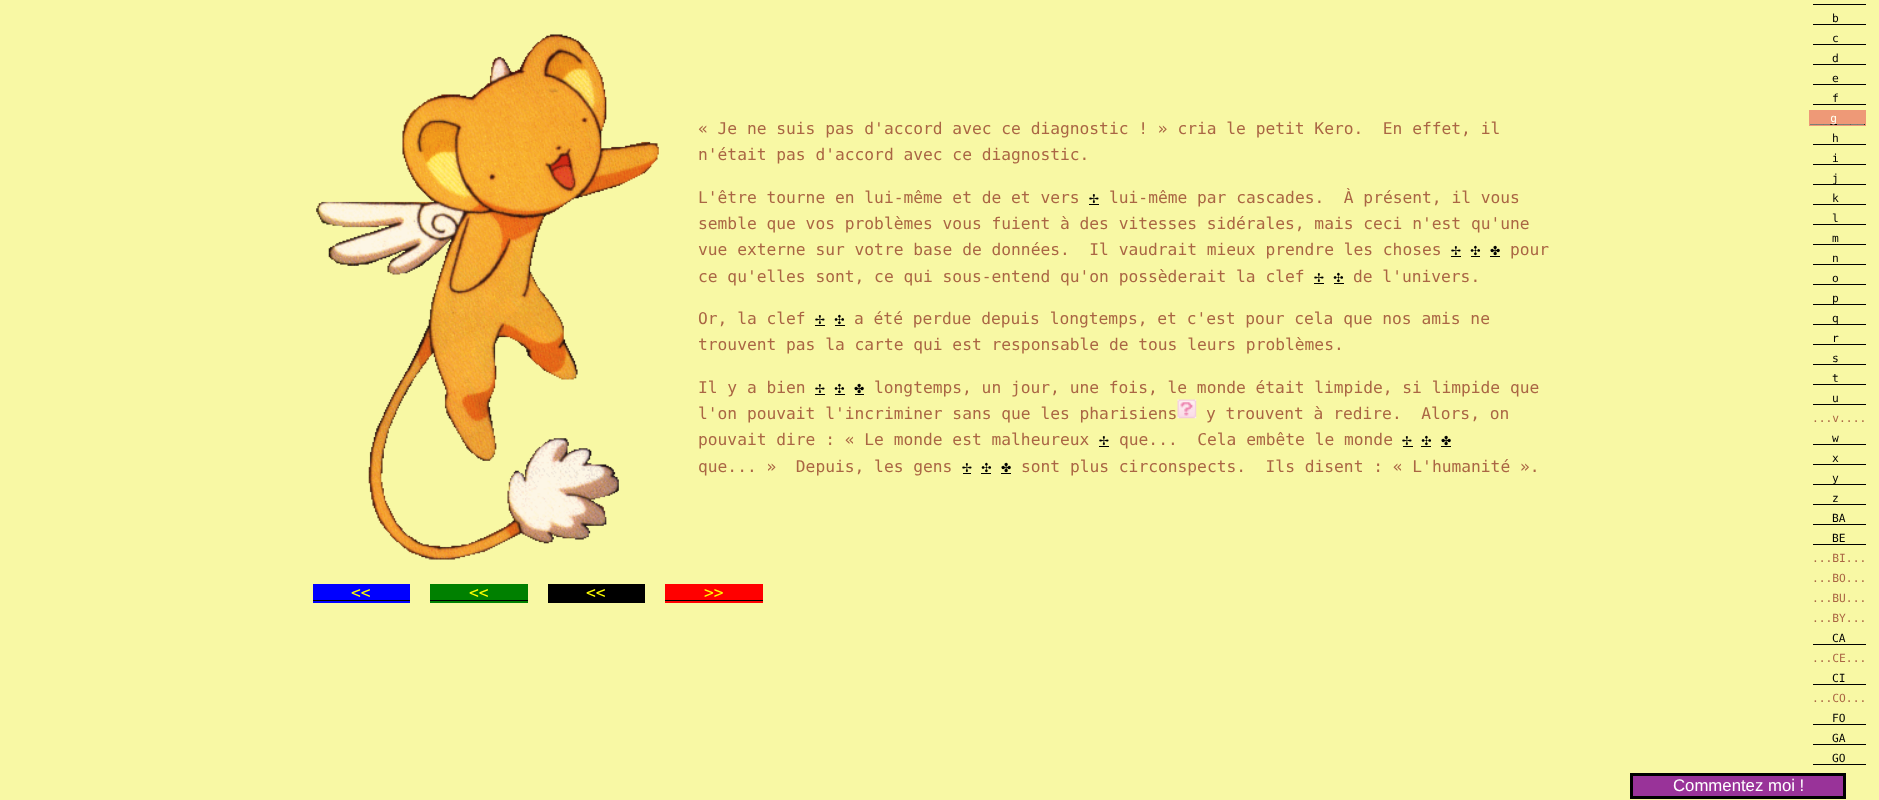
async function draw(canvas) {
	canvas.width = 1879;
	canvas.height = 800;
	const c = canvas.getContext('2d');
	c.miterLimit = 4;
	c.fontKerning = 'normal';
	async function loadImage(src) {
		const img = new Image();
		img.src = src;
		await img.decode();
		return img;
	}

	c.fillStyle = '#f8f8a4';
	c.fillRect(0, 0, 1879, 800);
	c.drawImage(await loadImage('img1.png'), 316, 34, 343, 526);
	c.font = '16.25px DejaVu Sans Mono';
	c.fillStyle = '#a64';
	for (const [text, x, y] of [
		['« Je ne suis pas d\'accord avec ce diagnostic ! » cria le petit Kero.  En effet, il', 698, 134],
		['n\'était pas d\'accord avec ce diagnostic.', 698, 160],
		['L\'être tourne en lui-même et de et vers', 698, 203],
	]) {
		c.fillText(text, x, y);
	}
	c.fillStyle = '#000';
	c.fillText('✢', 1089, 203);
	c.fillRect(1089, 204, 10, 1);
	c.fillStyle = '#a64';
	for (const [text, x, y] of [
		['lui-même par cascades.  À présent, il vous', 1109, 203],
		['semble que vos problèmes vous fuient à des vitesses sidérales, mais ceci n\'est qu\'une', 698, 229],
		['vue externe sur votre base de données.  Il vaudrait mieux prendre les choses', 698, 255],
	]) {
		c.fillText(text, x, y);
	}
	c.fillStyle = '#000';
	c.fillText('✢ ✣ ✤', 1451, 255);
	for (const [x, y, w, h, color] of [
		[1451, 256, 10, 1, '#000'],
		[1471, 256, 9, 1, '#000'],
		[1490, 256, 10, 1, '#000'],
	]) {
		c.fillStyle = color;
		c.fillRect(x, y, w, h);
	}
	c.fillStyle = '#a64';
	c.fillText('pour', 1510, 255);
	c.fillText('ce qu\'elles sont, ce qui sous-entend qu\'on possèderait la clef', 698, 282);
	c.fillStyle = '#000';
	c.fillText('✢ ✣', 1314, 282);
	c.fillRect(1314, 283, 10, 1);
	c.fillRect(1334, 283, 10, 1);
	c.fillStyle = '#a64';
	c.fillText('de l\'univers.', 1353, 282);
	c.fillText('Or, la clef', 698, 324);
	c.fillStyle = '#000';
	c.fillText('✢ ✣', 815, 324);
	c.fillRect(815, 325, 10, 1);
	c.fillRect(835, 325, 10, 1);
	c.fillStyle = '#a64';
	for (const [text, x, y] of [
		['a été perdue depuis longtemps, et c\'est pour cela que nos amis ne', 854, 324],
		['trouvent pas la carte qui est responsable de tous leurs problèmes.', 698, 350],
		['Il y a bien', 698, 393],
	]) {
		c.fillText(text, x, y);
	}
	c.fillStyle = '#000';
	c.fillText('✢ ✣ ✤', 815, 393);
	for (const [x, y, w, h, color] of [
		[815, 394, 10, 1, '#000'],
		[835, 394, 10, 1, '#000'],
		[855, 394, 9, 1, '#000'],
	]) {
		c.fillStyle = color;
		c.fillRect(x, y, w, h);
	}
	c.fillStyle = '#a64';
	c.fillText('longtemps, un jour, une fois, le monde était limpide, si limpide que', 874, 393);
	c.fillText('l\'on pouvait l\'incriminer sans que les pharisiens', 698, 419);
	c.drawImage(await loadImage('img2.png'), 1177, 399, 20, 20);
	c.fillText('y trouvent à redire.  Alors, on', 1206, 419);
	c.fillText('pouvait dire : « Le monde est malheureux', 698, 445);
	c.fillStyle = '#000';
	c.fillText('✢', 1099, 445);
	c.fillRect(1099, 446, 10, 1);
	c.fillStyle = '#a64';
	c.fillText('que...  Cela embête le monde', 1119, 445);
	c.fillStyle = '#000';
	c.fillText('✢ ✣ ✤', 1402, 445);
	for (const [x, y, w, h, color] of [
		[1403, 446, 10, 1, '#000'],
		[1421, 446, 10, 1, '#000'],
		[1441, 446, 10, 1, '#000'],
	]) {
		c.fillStyle = color;
		c.fillRect(x, y, w, h);
	}
	c.fillStyle = '#a64';
	c.fillText('que... »  Depuis, les gens', 698, 472);
	c.fillStyle = '#000';
	c.fillText('✢ ✣ ✤', 962, 472);
	for (const [x, y, w, h, color] of [
		[963, 473, 8, 1, '#000'],
		[981, 473, 10, 1, '#000'],
		[1001, 473, 10, 1, '#000'],
	]) {
		c.fillStyle = color;
		c.fillRect(x, y, w, h);
	}
	c.fillStyle = '#a64';
	c.fillText('sont plus circonspects.  Ils disent : « L\'humanité ».', 1021, 472);
	c.fillStyle = '#00f';
	c.fillRect(313, 584, 97, 19);
	c.fillStyle = '#ff0';
	c.fillText('<<', 351, 598);
	c.fillStyle = '#000';
	c.fillRect(313, 600, 97, 1);
	c.fillStyle = '#008000';
	c.fillRect(430, 584, 98, 19);
	c.fillStyle = '#ff0';
	c.fillText('<<', 469, 598);
	c.fillStyle = '#000';
	c.fillRect(430, 600, 98, 1);
	c.fillRect(548, 584, 97, 19);
	c.fillStyle = '#ff0';
	c.fillText('<<', 586, 598);
	c.fillStyle = '#f00';
	c.fillRect(665, 584, 98, 19);
	c.fillStyle = '#ff0';
	c.fillText('>>', 704, 598);
	c.fillStyle = '#000';
	c.fillRect(665, 600, 98, 1);
	c.font = '11.25px DejaVu Sans Mono';
	c.fillText('b', 1832, 22);
	c.fillRect(1813, 4, 53, 1);
	c.fillRect(1813, 24, 53, 1);
	c.fillText('c', 1832, 42);
	c.fillRect(1813, 44, 53, 1);
	c.fillText('d', 1832, 62);
	c.fillRect(1813, 64, 53, 1);
	c.fillText('e', 1832, 82);
	c.fillRect(1813, 84, 53, 1);
	c.fillText('f', 1832, 102);
	for (const [x, y, w, h, color] of [
		[1813, 104, 53, 1, '#000'],
		[1809, 110, 57, 16, '#e97'],
		[1810, 124, 55, 1, '#000'],
	]) {
		c.fillStyle = color;
		c.fillRect(x, y, w, h);
	}
	c.fillStyle = '#fffff0';
	c.fillText('___g____', 1810, 122);
	c.fillStyle = '#000';
	c.fillText('h', 1832, 142);
	c.fillRect(1813, 144, 53, 1);
	c.fillText('i', 1832, 162);
	c.fillRect(1813, 164, 53, 1);
	c.fillRect(1813, 184, 53, 1);
	c.fillText('j', 1832, 182);
	c.fillText('k', 1832, 202);
	c.fillRect(1813, 204, 53, 1);
	c.fillText('l', 1832, 222);
	c.fillRect(1813, 224, 53, 1);
	c.fillText('m', 1832, 242);
	c.fillRect(1813, 244, 53, 1);
	c.fillText('n', 1832, 262);
	c.fillRect(1813, 264, 53, 1);
	c.fillText('o', 1832, 282);
	c.fillRect(1813, 284, 53, 1);
	c.fillRect(1813, 304, 53, 1);
	c.fillText('p', 1832, 302);
	c.fillRect(1813, 324, 53, 1);
	c.fillText('q', 1832, 322);
	c.fillText('r', 1832, 342);
	c.fillRect(1813, 344, 53, 1);
	c.fillText('s', 1832, 362);
	c.fillRect(1813, 364, 53, 1);
	c.fillText('t', 1832, 382);
	c.fillRect(1813, 384, 53, 1);
	c.fillText('u', 1832, 402);
	c.fillRect(1813, 404, 53, 1);
	c.fillStyle = '#a64';
	c.fillText('...v....', 1812, 422);
	c.fillStyle = '#000';
	c.fillText('w', 1832, 442);
	c.fillRect(1813, 444, 53, 1);
	c.fillText('x', 1832, 462);
	c.fillRect(1813, 464, 53, 1);
	c.fillRect(1813, 484, 53, 1);
	c.fillText('y', 1832, 482);
	c.fillText('z', 1832, 502);
	c.fillRect(1813, 504, 53, 1);
	c.fillText('BA', 1832, 522);
	c.fillRect(1813, 524, 53, 1);
	c.fillText('BE', 1832, 542);
	c.fillRect(1813, 544, 53, 1);
	c.fillStyle = '#a64';
	for (const [text, x, y] of [
		['...BI...', 1812, 562],
		['...BO...', 1812, 582],
		['...BU...', 1812, 602],
		['...BY...', 1812, 622],
	]) {
		c.fillText(text, x, y);
	}
	c.fillStyle = '#000';
	c.fillText('CA', 1832, 642);
	c.fillRect(1813, 644, 53, 1);
	c.fillStyle = '#a64';
	c.fillText('...CE...', 1812, 662);
	c.fillStyle = '#000';
	c.fillText('CI', 1832, 682);
	c.fillRect(1813, 684, 53, 1);
	c.fillStyle = '#a64';
	c.fillText('...CO...', 1812, 702);
	c.fillStyle = '#000';
	c.fillText('FO', 1832, 722);
	c.fillRect(1813, 724, 53, 1);
	c.fillText('GA', 1832, 742);
	c.fillRect(1813, 744, 53, 1);
	c.fillText('GO', 1832, 762);
	c.fillRect(1813, 764, 53, 1);
	c.fillStyle = '#939';
	c.beginPath();
	c.rect(1631.5, 774.5, 213, 23);
	c.fill();
	c.strokeStyle = '#000';
	c.lineWidth = 3;
	c.stroke();
	c.font = '16.75px Liberation Sans';
	c.fillStyle = '#fff';
	c.fillText('Commentez moi !', 1673, 791);
}

draw(document.querySelector('canvas'));
